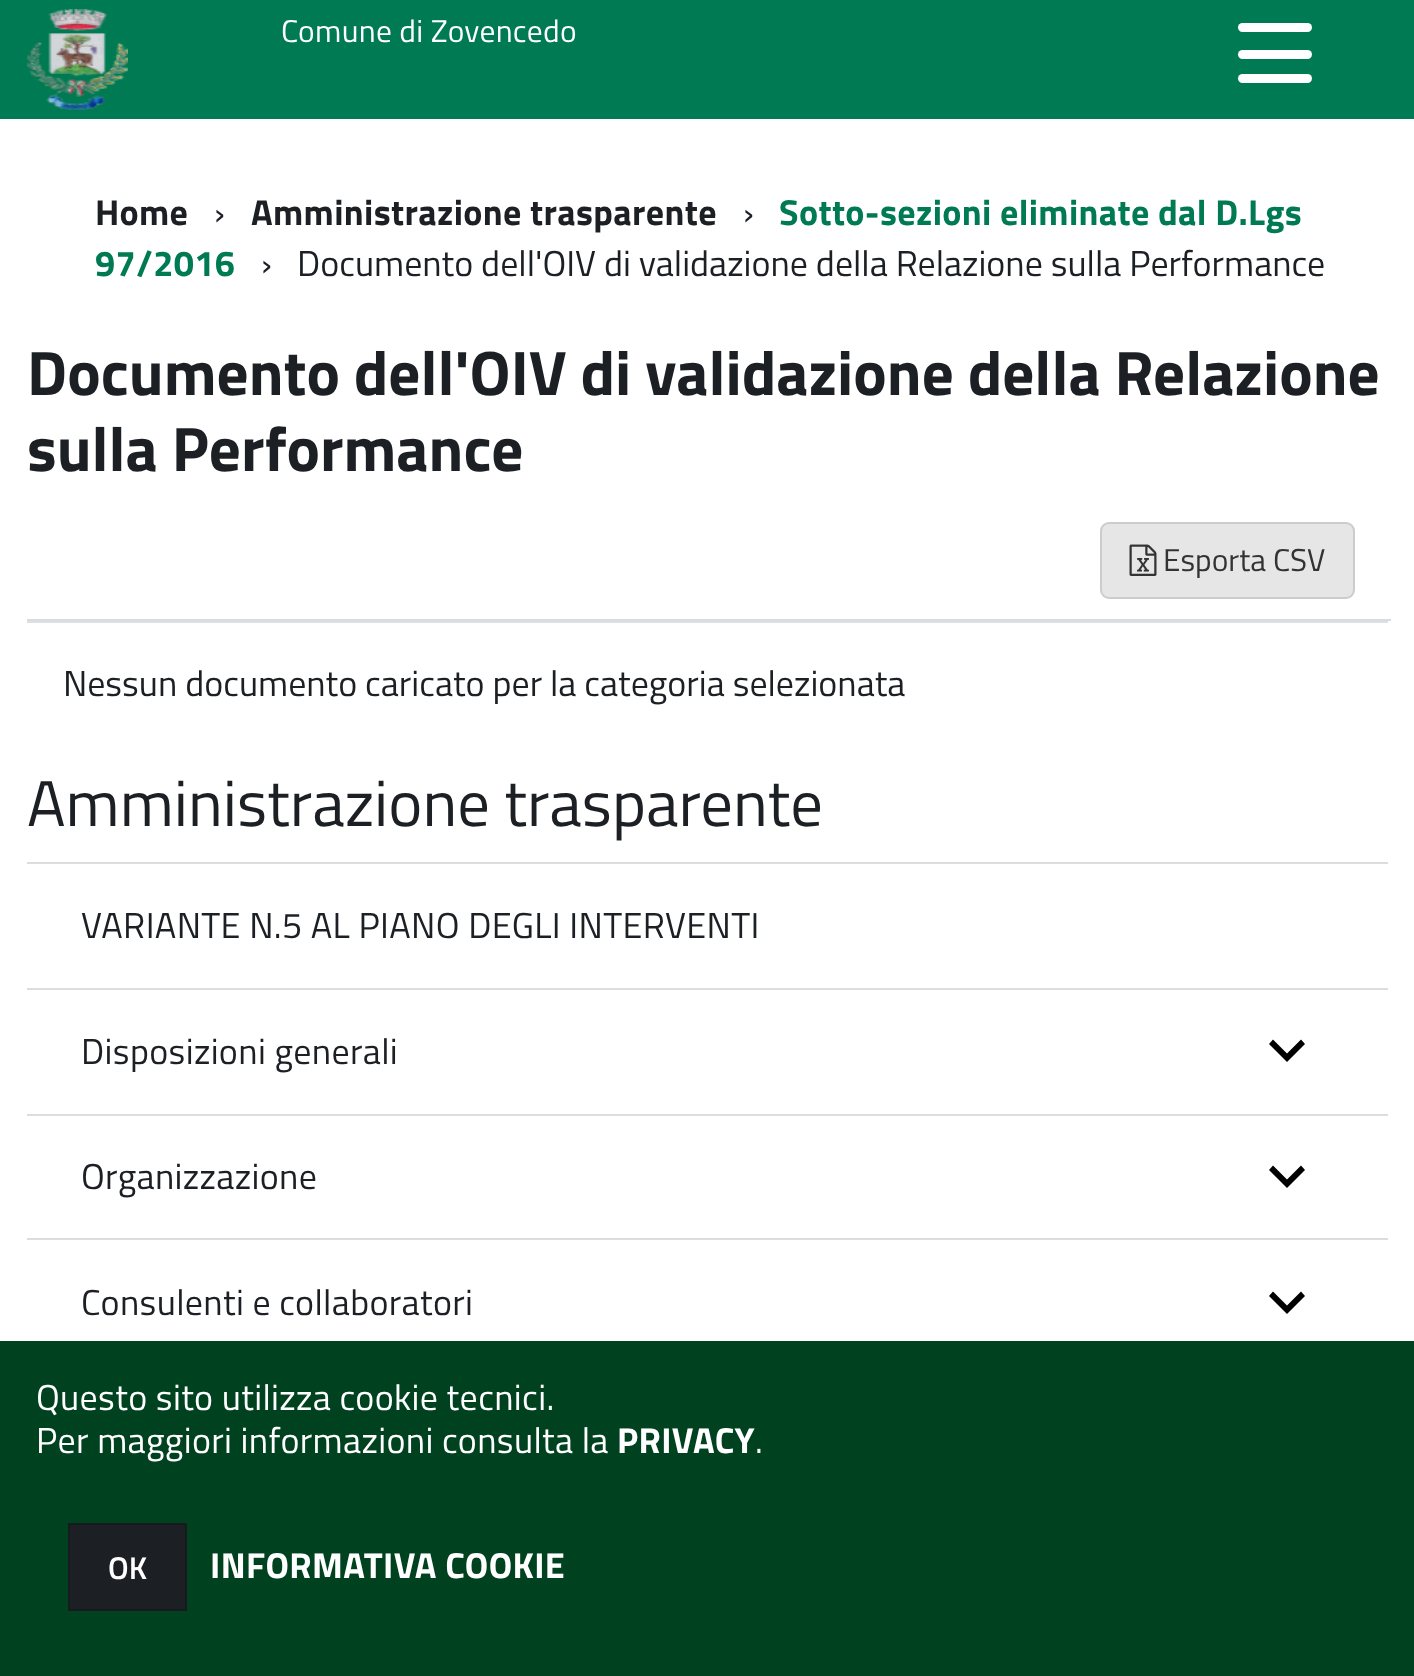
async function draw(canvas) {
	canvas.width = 1414;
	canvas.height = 1676;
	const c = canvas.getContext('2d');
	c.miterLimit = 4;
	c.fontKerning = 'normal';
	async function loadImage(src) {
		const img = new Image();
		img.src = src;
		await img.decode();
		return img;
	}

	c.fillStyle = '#fff';
	c.fillRect(0, 0, 1414, 1676);
	c.fillStyle = '#007a52';
	c.fillRect(0, 0, 1414, 119);
	c.drawImage(await loadImage('img1.png'), 27, 9, 101, 101);
	c.letterSpacing = '0.3px';
	c.font = '31.5px Titillium Web';
	c.fillStyle = '#fff';
	c.fillText('Comune di Zovencedo', 281, 42);
	c.beginPath();
	c.roundRect(1238, 50, 74, 9, 4.5);
	c.fill();
	c.beginPath();
	c.roundRect(1238, 23, 74, 9, 4.5);
	c.fill();
	c.beginPath();
	c.roundRect(1238, 74, 74, 9, 4.5);
	c.fill();
	c.letterSpacing = '0.35px';
	c.font = 'bold 36px Titillium Web';
	c.fillStyle = '#1c2024';
	c.fillText('Home', 95, 225);
	c.letterSpacing = '0px';
	c.font = '36px Titillium Web';
	c.fillText('›', 214, 225);
	c.letterSpacing = '0.35px';
	c.font = 'bold 36px Titillium Web';
	c.fillText('Amministrazione trasparente', 251, 225);
	c.letterSpacing = '0px';
	c.font = '36px Titillium Web';
	c.fillText('›', 743, 225);
	c.letterSpacing = '0.35px';
	c.font = 'bold 36px Titillium Web';
	c.fillStyle = '#007a52';
	c.fillText('Sotto-sezioni eliminate dal D.Lgs', 779, 225);
	c.fillText('97/2016', 95, 276);
	c.letterSpacing = '0px';
	c.font = '36px Titillium Web';
	c.fillStyle = '#1c2024';
	c.fillText('›', 261, 276);
	c.fillText('Documento dell\'OIV di validazione della Relazione sulla Performance', 297, 276);
	c.font = 'bold 63px Titillium Web';
	c.fillText('Documento dell\'OIV di validazione della Relazione', 27, 395);
	c.fillText('sulla Performance', 27, 471);
	c.fillStyle = '#e6e6e6';
	c.beginPath();
	c.roundRect(1101, 523, 253, 75, 8);
	c.fill();
	c.strokeStyle = '#ccc';
	c.lineWidth = 2;
	c.stroke();
	c.drawImage(await loadImage('img2.png'), 1129, 544, 28, 32);
	c.font = '31.5px Titillium Web';
	c.fillStyle = '#333';
	c.fillText('Esporta CSV', 1163, 571);
	c.fillStyle = '#d6dce3';
	c.fillRect(27, 619, 1364, 2);
	c.fillStyle = '#dfdfdf';
	c.fillRect(27, 621, 1361, 2);
	c.font = '36px Titillium Web';
	c.fillStyle = '#1c2024';
	c.fillText('Nessun documento caricato per la categoria selezionata', 63, 696);
	c.font = '64.75px Titillium Web';
	c.fillText('Amministrazione trasparente', 27, 826);
	c.fillStyle = '#ddd';
	c.fillRect(27, 862, 1361, 2);
	c.letterSpacing = '0.35px';
	c.font = '36px Titillium Web';
	c.fillStyle = '#1c2024';
	c.fillText('VARIANTE N.5 AL PIANO DEGLI INTERVENTI', 81, 938);
	c.fillStyle = '#ddd';
	c.fillRect(27, 988, 1361, 2);
	c.fillStyle = '#1c2024';
	c.fillText('Disposizioni generali', 81, 1064);
	c.fillStyle = '#000';
	c.beginPath();
	c.moveTo(1273, 1039.5);
	c.lineTo(1269, 1044);
	c.lineTo(1287, 1062);
	c.lineTo(1305, 1044);
	c.lineTo(1301, 1039.5);
	c.lineTo(1287, 1053.5);
	c.closePath();
	c.fill();
	c.fillStyle = '#ddd';
	c.fillRect(27, 1114, 1361, 2);
	c.fillStyle = '#1c2024';
	c.fillText('Organizzazione', 81, 1189);
	c.fillStyle = '#000';
	c.beginPath();
	c.moveTo(1273, 1165.5);
	c.lineTo(1269, 1170);
	c.lineTo(1287, 1188);
	c.lineTo(1305, 1170);
	c.lineTo(1301, 1165.5);
	c.lineTo(1287, 1179.5);
	c.closePath();
	c.fill();
	c.fillStyle = '#ddd';
	c.fillRect(27, 1238, 1361, 2);
	c.fillStyle = '#1c2024';
	c.fillText('Consulenti e collaboratori', 81, 1315);
	c.fillStyle = '#000';
	c.beginPath();
	c.moveTo(1273, 1291.5);
	c.lineTo(1269, 1296);
	c.lineTo(1287, 1314);
	c.lineTo(1305, 1296);
	c.lineTo(1301, 1291.5);
	c.lineTo(1287, 1305.5);
	c.closePath();
	c.fill();
	c.fillStyle = '#004220';
	c.fillRect(0, 1341, 1414, 335);
	c.fillStyle = '#fff';
	c.fillText('Questo sito utilizza cookie tecnici.', 36, 1410);
	c.fillText('Per maggiori informazioni consulta la', 36, 1453);
	c.font = 'bold 36px Titillium Web';
	c.fillText('PRIVACY', 617, 1453);
	c.font = '36px Titillium Web';
	c.fillText('.', 755, 1453);
	c.fillStyle = '#1c2024';
	c.beginPath();
	c.rect(69, 1524, 117, 86);
	c.fill();
	c.strokeStyle = '#171b1f';
	c.stroke();
	c.letterSpacing = '0px';
	c.font = '600 31.5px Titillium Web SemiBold';
	c.fillStyle = '#fff';
	c.fillText('OK', 108, 1579);
	c.letterSpacing = '0.35px';
	c.font = 'bold 36px Titillium Web';
	c.fillText('INFORMATIVA COOKIE', 210, 1578);
}

draw(document.querySelector('canvas'));
